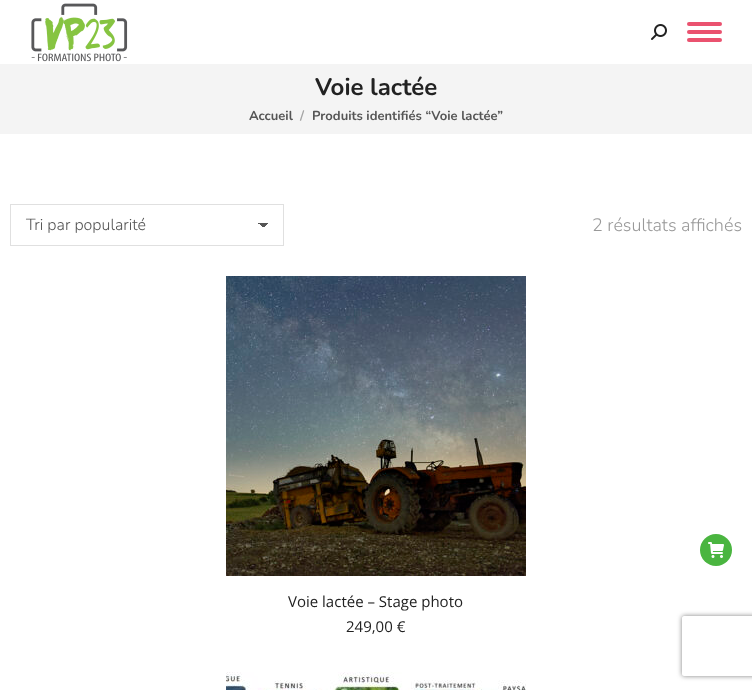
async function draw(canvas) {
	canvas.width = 752;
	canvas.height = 690;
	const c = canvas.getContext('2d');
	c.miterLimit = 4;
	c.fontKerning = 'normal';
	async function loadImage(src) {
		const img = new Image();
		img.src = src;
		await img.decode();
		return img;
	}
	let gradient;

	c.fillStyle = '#fff';
	c.fillRect(0, 0, 752, 690);
	c.drawImage(await loadImage('img1.png'), 31, 3, 97, 59);
	c.drawImage(await loadImage('img2.png'), 651, 24, 16, 16);
	c.fillStyle = '#ea526f';
	c.beginPath();
	c.roundRect(687, 22, 35, 4, 2);
	c.fill();
	c.beginPath();
	c.roundRect(687, 30, 35, 4, 2);
	c.fill();
	c.beginPath();
	c.roundRect(687, 38, 35, 4, 2);
	c.fill();
	c.fillStyle = '#f4f4f4';
	c.fillRect(0, 64, 752, 70);
	c.font = 'bold 24px Nunito';
	c.fillStyle = '#222';
	c.fillText('Voie lactée', 315, 95);
	c.font = 'bold 13px Nunito';
	c.fillStyle = '#555';
	c.fillText('Accueil', 249, 120);
	c.fillStyle = '#a5a5a5';
	c.fillText('/', 300, 120);
	c.fillStyle = '#555';
	c.fillText('Produits identifiés “Voie lactée”', 312, 120);
	gradient = c.createLinearGradient(263, 223, 268, 228);
	gradient.addColorStop(0.5, '#555');
	gradient.addColorStop(0.5, '#fff');
	c.fillStyle = gradient;
	c.fillRect(263, 223, 5, 4);
	gradient = c.createLinearGradient(258, 228, 263, 223);
	gradient.addColorStop(0.5, '#fff');
	gradient.addColorStop(0.5, '#555');
	c.fillStyle = gradient;
	c.fillRect(258, 223, 5, 4);
	c.strokeStyle = '#e0e0e0';
	c.strokeRect(10.5, 204.5, 273, 41);
	c.font = '300 16px Nunito';
	c.fillStyle = '#555';
	c.fillText('Tri par popularité', 26, 230);
	c.font = '300 18px Nunito';
	c.fillStyle = '#999';
	c.fillText('2 résultats affichés', 592, 231);
	c.drawImage(await loadImage('img3.png'), 226, 276, 300, 300);
	c.fillStyle = '#4ab540';
	c.beginPath();
	c.arc(716, 550, 16, 0, 2 * Math.PI);
	c.fill();
	c.drawImage(await loadImage('img4.png'), 708, 542, 16, 16);
	c.font = '15px Open Sans';
	c.fillStyle = '#222';
	c.fillText('Voie lactée – Stage photo', 288, 607);
	c.fillText('249,00 €', 346, 632);
	c.drawImage(await loadImage('img5.png'), 226, 672, 300, 18);
	c.save();
	c.beginPath();
	c.moveTo(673, 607);
	c.lineTo(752, 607);
	c.lineTo(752, 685);
	c.lineTo(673, 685);
	c.closePath();
	c.moveTo(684, 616);
	c.lineTo(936, 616);
	c.bezierCurveTo(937, 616, 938, 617, 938, 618);
	c.lineTo(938, 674);
	c.bezierCurveTo(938, 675, 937, 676, 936, 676);
	c.lineTo(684, 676);
	c.bezierCurveTo(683, 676, 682, 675, 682, 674);
	c.lineTo(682, 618);
	c.bezierCurveTo(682, 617, 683, 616, 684, 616);
	c.closePath();
	c.clip('evenodd');
	c.fillStyle = '#808080';
	c.filter = 'blur(2.5px)';
	c.beginPath();
	c.roundRect(682, 616, 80, 60, 2);
	c.fill();
	c.filter = 'none';
	c.restore();
}

draw(document.querySelector('canvas'));
